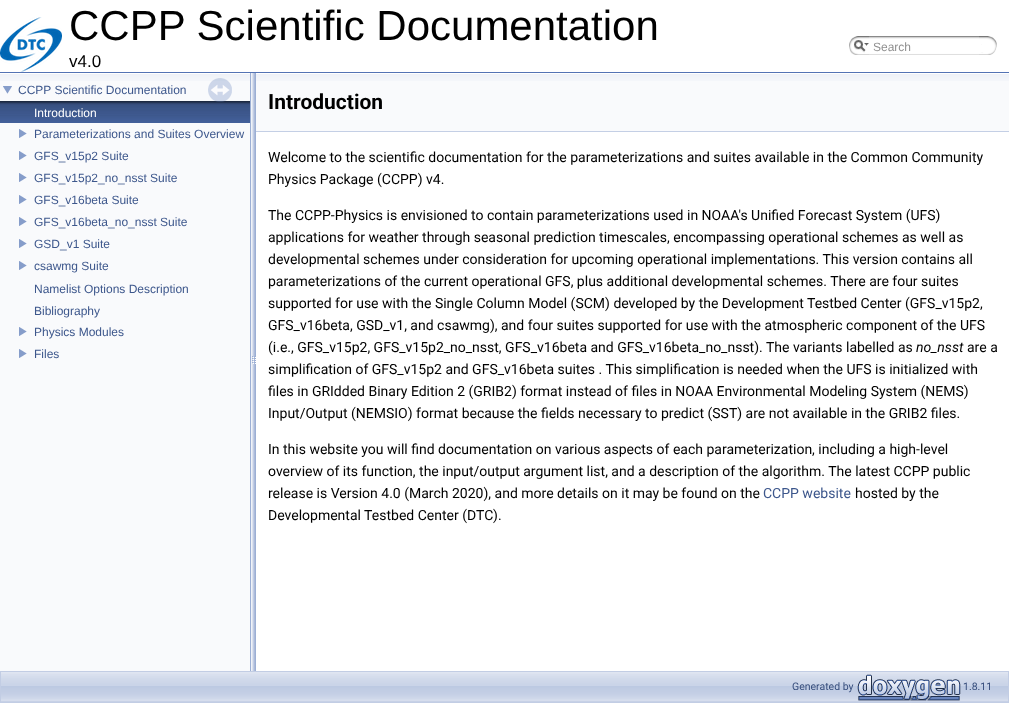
async function draw(canvas) {
	canvas.width = 1009;
	canvas.height = 703;
	const c = canvas.getContext('2d');
	c.miterLimit = 4;
	c.fontKerning = 'normal';
	async function loadImage(src) {
		const img = new Image();
		img.src = src;
		await img.decode();
		return img;
	}

	c.fillStyle = '#fff';
	c.fillRect(0, 0, 1009, 703);
	c.fillStyle = '#5373b4';
	c.fillRect(0, 72, 1009, 1);
	c.drawImage(await loadImage('img1.png'), 0, 17, 62, 55);
	c.font = '42px Liberation Sans';
	c.fillStyle = '#000';
	c.fillText('CCPP Scientific Documentation', 69, 40);
	c.font = '17px Liberation Sans';
	c.fillText('v4.0', 69, 67);
	c.drawImage(await loadImage('img2.png'), 849, 36, 20, 19);
	c.drawImage(await loadImage('img3.png'), 854, 40, 15, 12);
	c.drawImage(await loadImage('img4.png'), 869, 36, 110, 19);
	c.font = '12px Liberation Sans';
	c.fillStyle = '#909090';
	c.fillText('Search', 873, 51);
	c.drawImage(await loadImage('img5.png'), 979, 36, 18, 19);
	c.fillStyle = '#f9fafc';
	c.fillRect(0, 81, 250, 590);
	c.drawImage(await loadImage('img6.png'), 0, 73, 250, 8);
	c.drawImage(await loadImage('img9.png'), 0, 101, 250, 22);
	c.drawImage(await loadImage('img7.png'), 208, 78, 24, 24);
	c.drawImage(await loadImage('img8.png'), 3, 86, 9, 8);
	c.fillStyle = '#3d578c';
	c.fillText('CCPP Scientific Documentation', 18, 94);
	c.fillStyle = '#fff';
	c.fillText('Introduction', 34, 117);
	c.drawImage(await loadImage('img10.png'), 19, 129, 8, 9);
	c.fillStyle = '#3d578c';
	c.fillText('Parameterizations and Suites Overview', 34, 138);
	c.drawImage(await loadImage('img10.png'), 19, 151, 8, 9);
	c.fillText('GFS_v15p2 Suite', 34, 160);
	c.drawImage(await loadImage('img10.png'), 19, 173, 8, 9);
	c.fillText('GFS_v15p2_no_nsst Suite', 34, 182);
	c.drawImage(await loadImage('img10.png'), 19, 195, 8, 9);
	c.fillText('GFS_v16beta Suite', 34, 204);
	c.drawImage(await loadImage('img10.png'), 19, 217, 8, 9);
	c.fillText('GFS_v16beta_no_nsst Suite', 34, 226);
	c.drawImage(await loadImage('img10.png'), 19, 239, 8, 9);
	c.fillText('GSD_v1 Suite', 34, 248);
	c.drawImage(await loadImage('img10.png'), 19, 261, 8, 9);
	for (const [text, x, y] of [
		['csawmg Suite', 34, 270],
		['Namelist Options Description', 34, 293],
		['Bibliography', 34, 315],
	]) {
		c.fillText(text, x, y);
	}
	c.drawImage(await loadImage('img10.png'), 19, 327, 8, 9);
	c.fillText('Physics Modules', 34, 336);
	c.drawImage(await loadImage('img10.png'), 19, 349, 8, 9);
	c.fillText('Files', 34, 358);
	c.drawImage(await loadImage('img11.png'), 250, 73, 6, 598);
	c.fillStyle = '#f9fafc';
	c.fillRect(256, 81, 753, 50);
	c.drawImage(await loadImage('img12.png'), 256, 73, 753, 8);
	c.fillStyle = '#c4cfe5';
	c.fillRect(256, 131, 753, 1);
	c.font = 'bold 21px Roboto';
	c.fillStyle = '#000';
	c.fillText('Introduction', 268, 109);
	c.font = '14px Roboto';
	for (const [text, x, y] of [
		['Welcome to the scientific documentation for the parameterizations and suites available in the Common Community', 268, 162],
		['Physics Package (CCPP) v4.', 268, 184],
		['The CCPP-Physics is envisioned to contain parameterizations used in NOAA\'s Unified Forecast System (UFS)', 268, 220],
		['applications for weather through seasonal prediction timescales, encompassing operational schemes as well as', 268, 242],
		['developmental schemes under consideration for upcoming operational implementations. This version contains all', 268, 264],
		['parameterizations of the current operational GFS, plus additional developmental schemes. There are four suites', 268, 286],
		['supported for use with the Single Column Model (SCM) developed by the Development Testbed Center (GFS_v15p2,', 268, 308],
		['GFS_v16beta, GSD_v1, and csawmg), and four suites supported for use with the atmospheric component of the UFS', 268, 330],
		['(i.e., GFS_v15p2, GFS_v15p2_no_nsst, GFS_v16beta and GFS_v16beta_no_nsst). The variants labelled as', 268, 352],
	]) {
		c.fillText(text, x, y);
	}
	c.font = 'italic 14px Roboto';
	c.fillText('no_nsst', 916, 352);
	c.font = '14px Roboto';
	for (const [text, x, y] of [
		['are a', 967, 352],
		['simplification of GFS_v15p2 and GFS_v16beta suites . This simplification is needed when the UFS is initialized with', 268, 374],
		['files in GRIdded Binary Edition 2 (GRIB2) format instead of files in NOAA Environmental Modeling System (NEMS)', 268, 396],
		['Input/Output (NEMSIO) format because the fields necessary to predict (SST) are not available in the GRIB2 files.', 268, 418],
		['In this website you will find documentation on various aspects of each parameterization, including a high-level', 268, 454],
		['overview of its function, the input/output argument list, and a description of the algorithm. The latest CCPP public', 268, 476],
		['release is Version 4.0 (March 2020), and more details on it may be found on the', 268, 498],
	]) {
		c.fillText(text, x, y);
	}
	c.fillStyle = '#3d578c';
	c.fillText('CCPP website', 763, 498);
	c.fillStyle = '#000';
	c.fillText('hosted by the', 855, 498);
	c.fillText('Developmental Testbed Center (DTC).', 268, 520);
	c.drawImage(await loadImage('img13.png'), 1, 672, 1007, 30);
	c.strokeStyle = '#c2cde4';
	c.strokeRect(0.5, 671.5, 1008, 31);
	c.font = '10.5px Roboto';
	c.fillStyle = '#364d7c';
	c.fillText('Generated by', 792, 690);
	c.drawImage(await loadImage('img14.png'), 857, 674, 104, 27);
	c.fillText('1.8.11', 963, 690);
}

draw(document.querySelector('canvas'));
